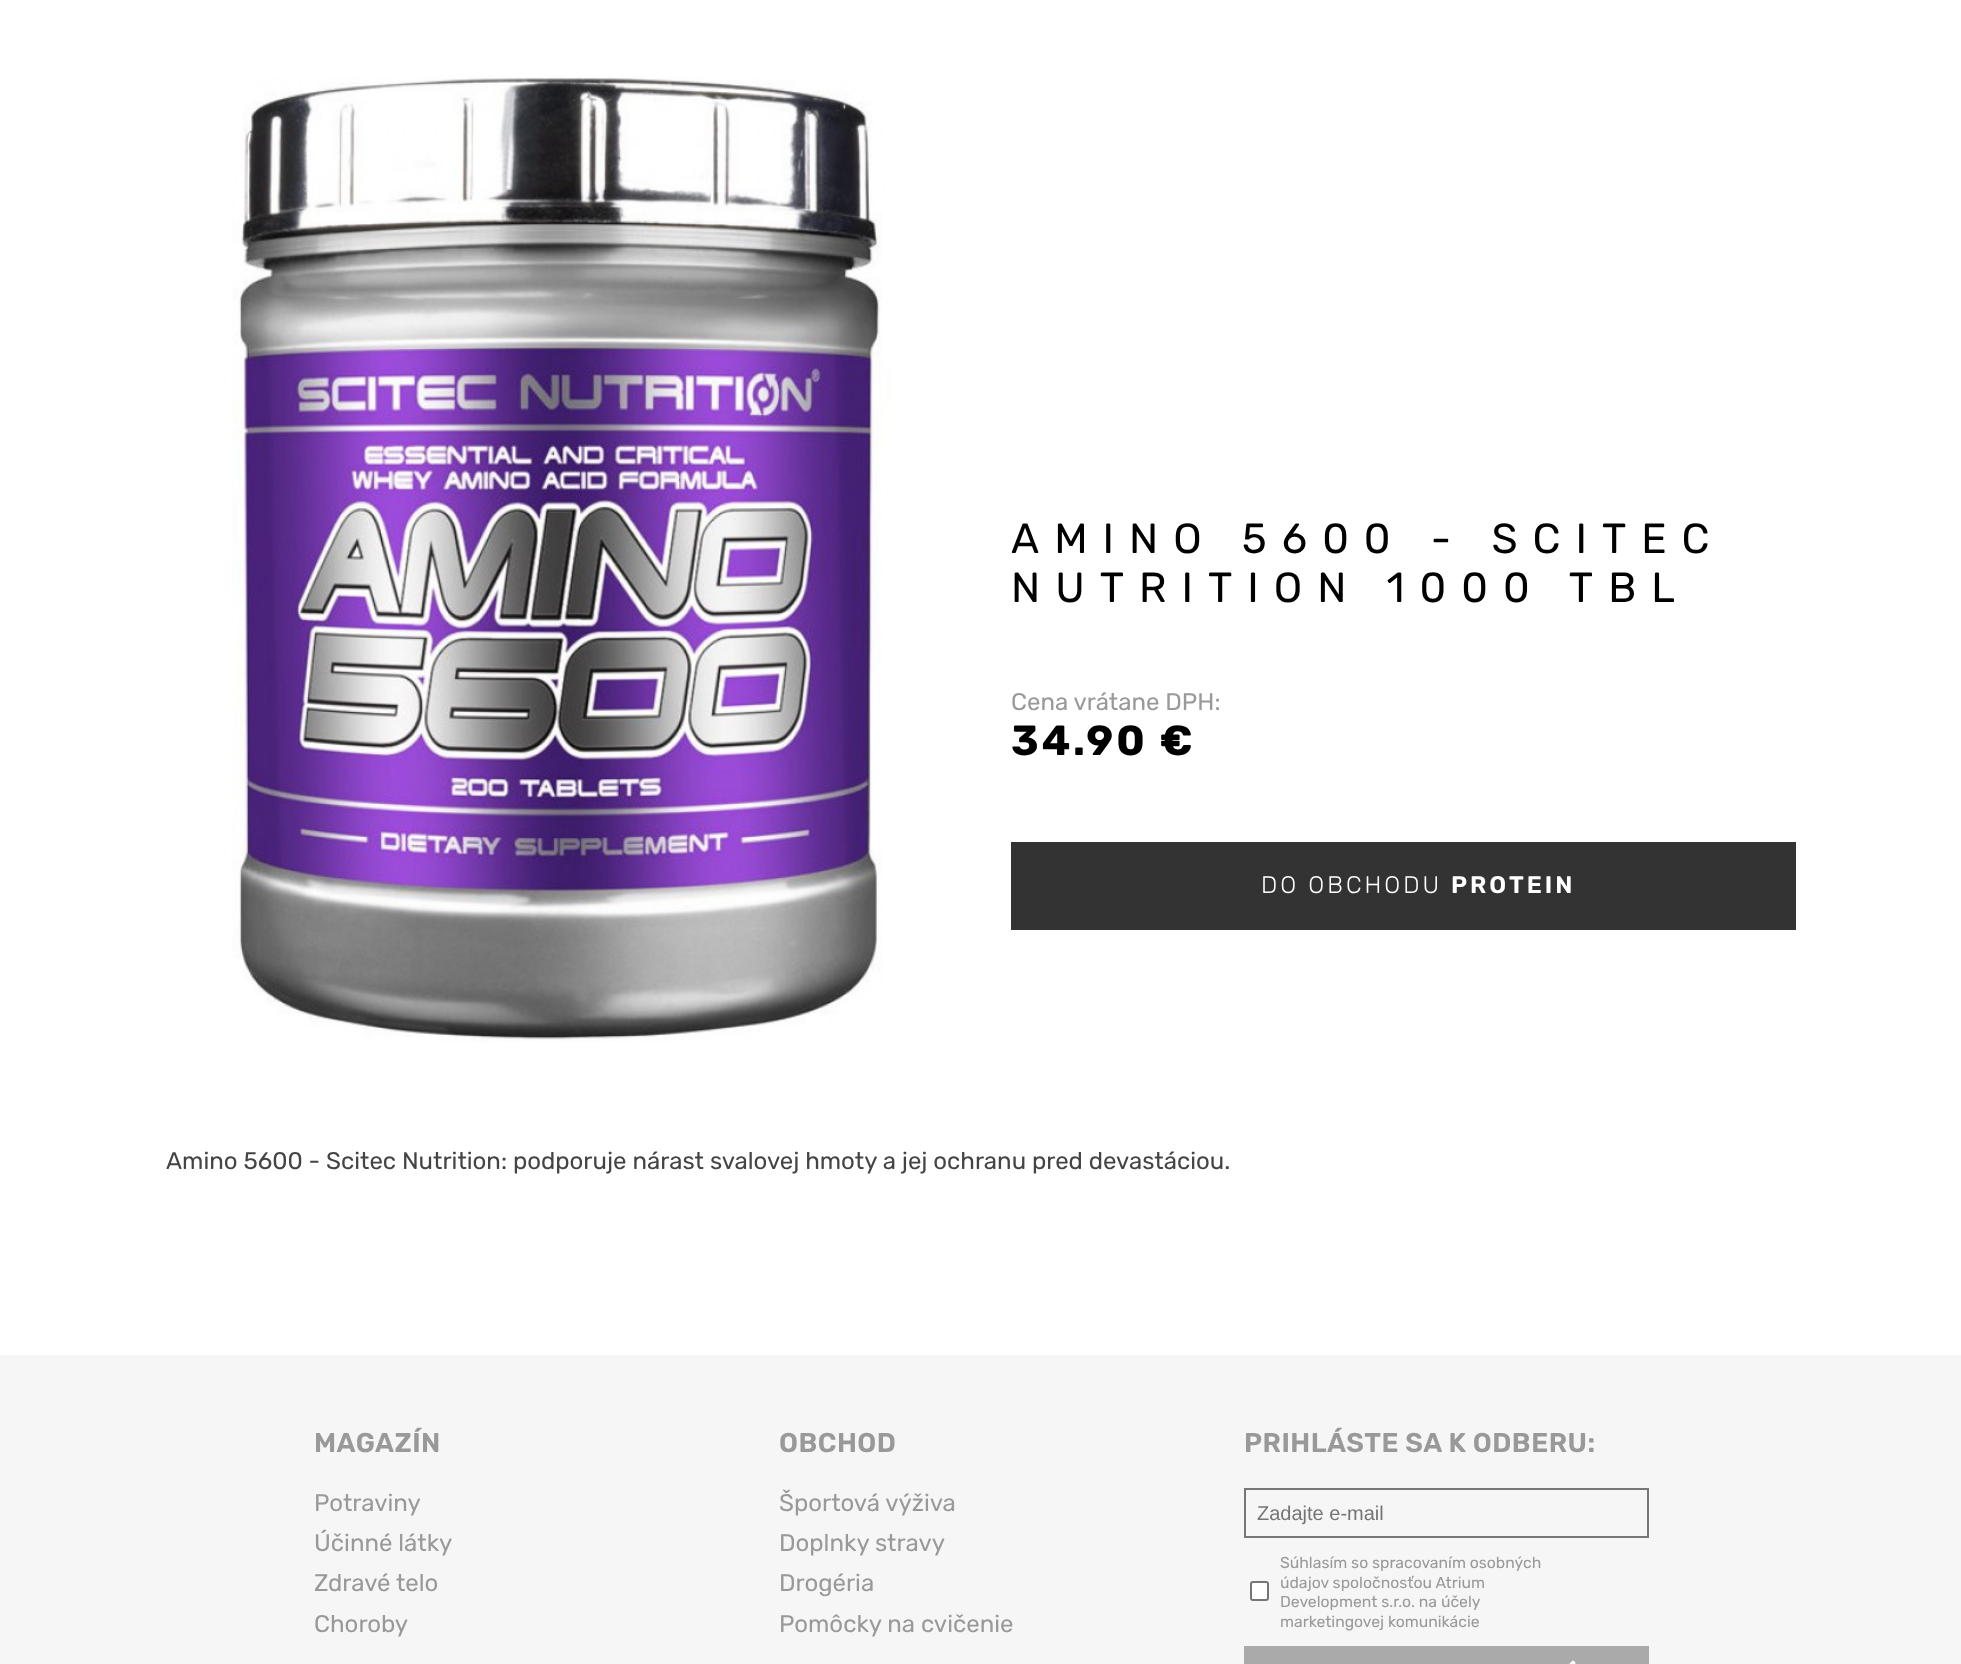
async function draw(canvas) {
	canvas.width = 1961;
	canvas.height = 1664;
	const c = canvas.getContext('2d');
	c.miterLimit = 4;
	c.fontKerning = 'normal';
	async function loadImage(src) {
		const img = new Image();
		img.src = src;
		await img.decode();
		return img;
	}

	c.fillStyle = '#fff';
	c.fillRect(0, 0, 1961, 1664);
	c.drawImage(await loadImage('img1.png'), 232, 76, 660, 966);
	c.letterSpacing = '15px';
	c.font = '42px Rubik';
	c.fillStyle = '#000';
	c.fillText('AMINO 5600 - SCITEC', 1011, 553);
	c.fillText('NUTRITION 1000 TBL', 1011, 602);
	c.letterSpacing = '0px';
	c.font = '24px Rubik';
	c.fillStyle = '#999';
	c.fillText('Cena vrátane DPH:', 1011, 710);
	c.letterSpacing = '3px';
	c.font = 'bold 42px Rubik';
	c.fillStyle = '#000';
	c.fillText('34.90 €', 1011, 755);
	c.fillStyle = '#333';
	c.fillRect(1011, 842, 785, 88);
	c.font = '300 24px Rubik';
	c.fillStyle = '#fff';
	c.fillText('DO OBCHODU', 1261, 893);
	c.font = '600 24px Rubik';
	c.fillText('PROTEIN', 1451, 893);
	c.letterSpacing = '0px';
	c.font = '24px Rubik';
	c.fillStyle = '#444';
	c.fillText('Amino 5600 - Scitec Nutrition: podporuje nárast svalovej hmoty a jej ochranu pred devastáciou.', 166, 1169);
	c.fillStyle = '#f6f6f6';
	c.fillRect(0, 1355, 1961, 309);
	c.letterSpacing = '0.5px';
	c.font = '600 27px Rubik';
	c.fillStyle = '#999';
	c.fillText('MAGAZÍN', 314, 1452);
	c.letterSpacing = '0px';
	c.font = '24px Rubik';
	for (const [text, x, y] of [
		['Potraviny', 314, 1511],
		['Účinné látky', 314, 1551],
		['Zdravé telo', 314, 1591],
		['Choroby', 314, 1632],
	]) {
		c.fillText(text, x, y);
	}
	c.letterSpacing = '0.5px';
	c.font = '600 27px Rubik';
	c.fillText('OBCHOD', 779, 1452);
	c.letterSpacing = '0px';
	c.font = '24px Rubik';
	for (const [text, x, y] of [
		['Športová výživa', 779, 1511],
		['Doplnky stravy', 779, 1551],
		['Drogéria', 779, 1591],
		['Pomôcky na cvičenie', 779, 1632],
	]) {
		c.fillText(text, x, y);
	}
	c.letterSpacing = '0.5px';
	c.font = '600 27px Rubik';
	c.fillText('PRIHLÁSTE SA K ODBERU:', 1244, 1452);
	c.strokeStyle = '#777';
	c.lineWidth = 2;
	c.strokeRect(1245, 1489, 403, 48);
	c.letterSpacing = '0px';
	c.font = '20px Liberation Sans';
	c.fillStyle = '#757575';
	c.fillText('Zadajte e-mail', 1257, 1520);
	c.fillStyle = '#fff';
	c.beginPath();
	c.roundRect(1251, 1582, 17, 18, 2);
	c.fill();
	c.strokeStyle = '#767676';
	c.stroke();
	c.font = '15.75px Rubik';
	c.fillStyle = '#999';
	for (const [text, x, y] of [
		['Súhlasím so spracovaním osobných', 1280, 1568],
		['údajov spoločnosťou Atrium', 1280, 1588],
		['Development s.r.o. na účely', 1280, 1607],
		['marketingovej komunikácie', 1280, 1627],
	]) {
		c.fillText(text, x, y);
	}
	c.fillStyle = '#aaa';
	c.fillRect(1244, 1646, 405, 18);
	c.drawImage(await loadImage('img2.png'), 1569, 1660, 7, 4);
}

draw(document.querySelector('canvas'));
